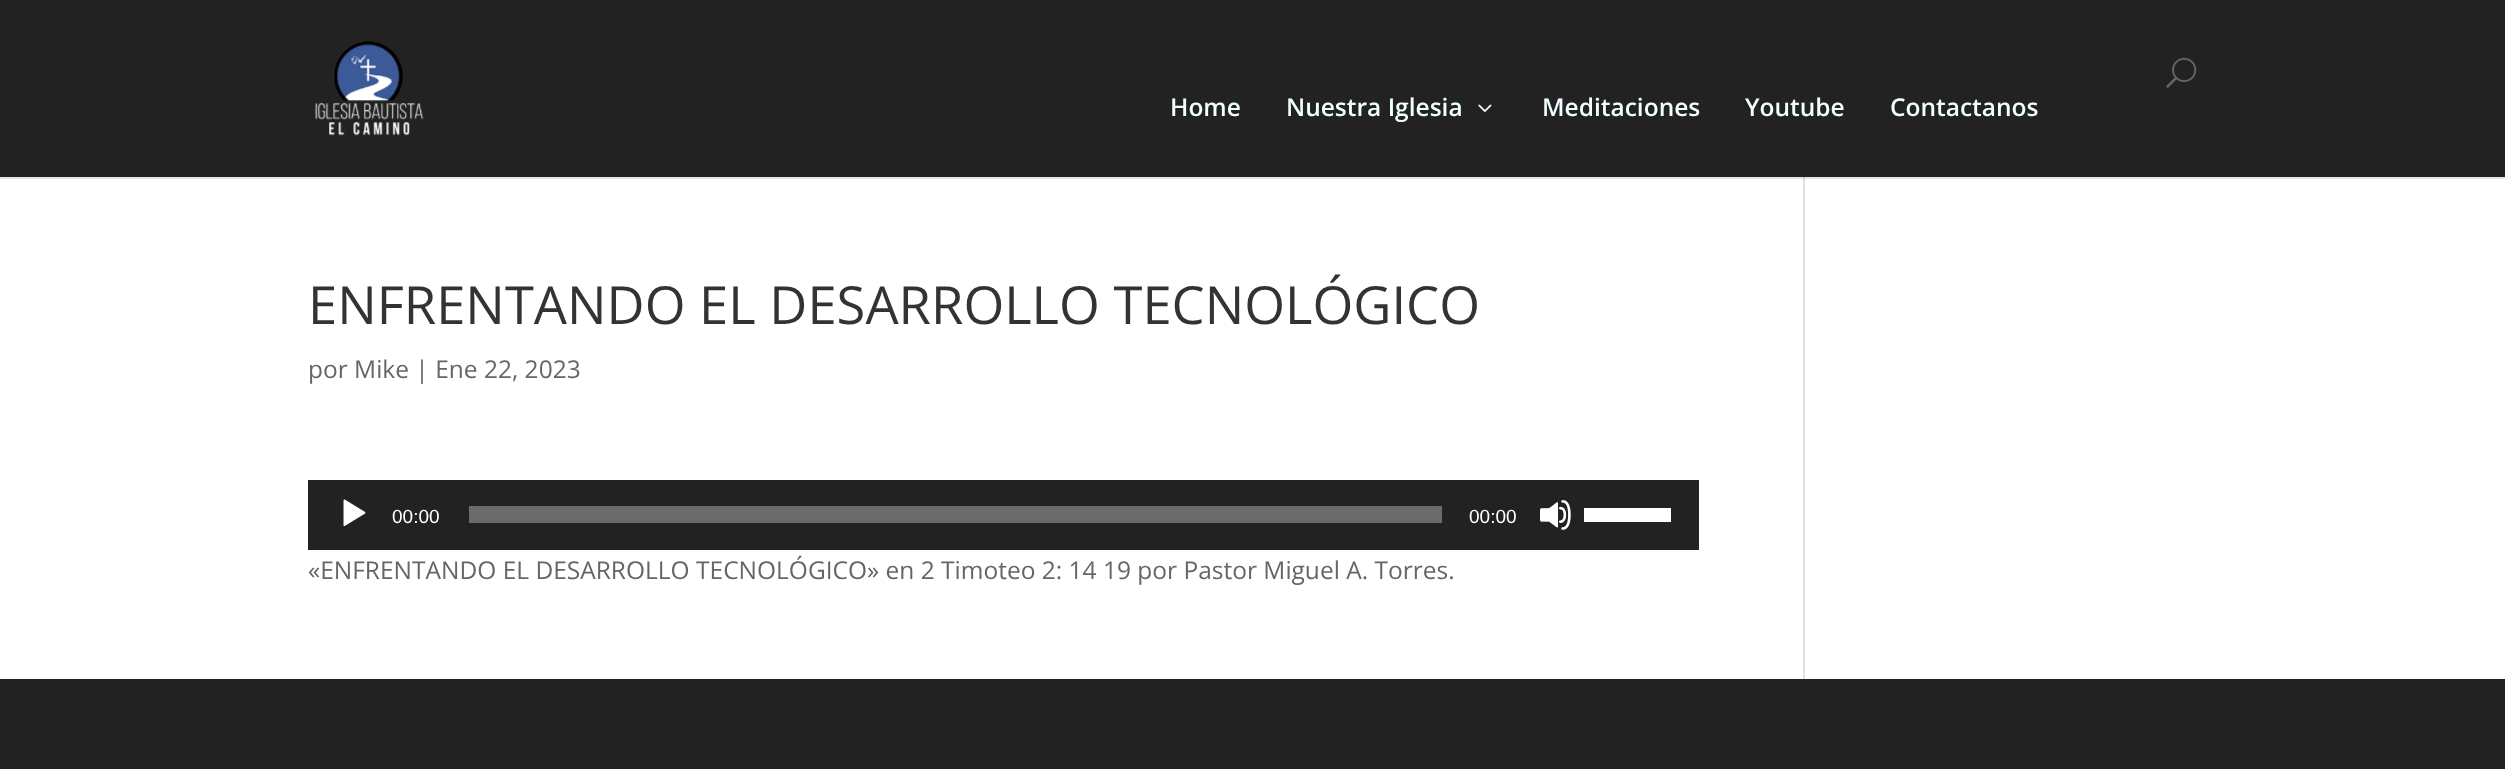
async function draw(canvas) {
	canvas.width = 2505;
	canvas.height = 769;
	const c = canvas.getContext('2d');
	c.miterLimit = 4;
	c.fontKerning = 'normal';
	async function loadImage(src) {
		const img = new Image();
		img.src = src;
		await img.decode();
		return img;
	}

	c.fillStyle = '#fff';
	c.fillRect(0, 0, 2505, 769);
	c.fillStyle = '#e6e6e6';
	c.fillRect(0, 177, 2505, 2);
	c.fillStyle = '#222';
	c.fillRect(0, 0, 2505, 177);
	c.drawImage(await loadImage('img1.png'), 315, 41, 109, 95);
	c.drawImage(await loadImage('img2.png'), 2166, 57, 31, 31);
	c.font = '600 24.5px Open Sans';
	c.fillStyle = '#f0ffff';
	c.fillText('Home', 1170, 116);
	c.fillText('Nuestra Iglesia', 1286, 116);
	c.drawImage(await loadImage('img3.png'), 1478, 104, 14, 8);
	for (const [text, x, y] of [
		['Meditaciones', 1542, 116],
		['Youtube', 1745, 116],
		['Contactanos', 1890, 116],
	]) {
		c.fillText(text, x, y);
	}
	c.font = '52.5px Open Sans';
	c.fillStyle = '#333';
	c.fillText('ENFRENTANDO EL DESARROLLO TECNOLÓGICO', 308, 324);
	c.font = '24.5px Open Sans';
	c.fillStyle = '#666';
	c.fillText('por Mike | Ene 22, 2023', 308, 378);
	c.fillStyle = '#222';
	c.fillRect(308, 480, 1391, 70);
	c.drawImage(await loadImage('img4.png'), 343, 499, 23, 28);
	c.font = '19px Liberation Sans';
	c.fillStyle = '#fff';
	c.fillText('00:00', 392, 523);
	c.fillStyle = '#6b6b6b';
	c.fillRect(469, 506, 973, 17);
	c.fillStyle = '#fff';
	c.fillText('00:00', 1469, 523);
	c.drawImage(await loadImage('img5.png'), 1540, 500, 31, 30);
	c.fillRect(1584, 508, 87, 14);
	c.font = '24.5px Open Sans';
	c.fillStyle = '#666';
	c.fillText('«ENFRENTANDO EL DESARROLLO TECNOLÓGICO» en 2 Timoteo 2: 14 19 por Pastor Miguel A. Torres.', 308, 579);
	for (const [x, y, w, h, color] of [
		[1803, 177, 2, 502, '#e2e2e2'],
		[1803, 177, 2, 2, '#cbcbcb'],
		[0, 679, 2505, 90, '#222'],
	]) {
		c.fillStyle = color;
		c.fillRect(x, y, w, h);
	}
}

draw(document.querySelector('canvas'));
